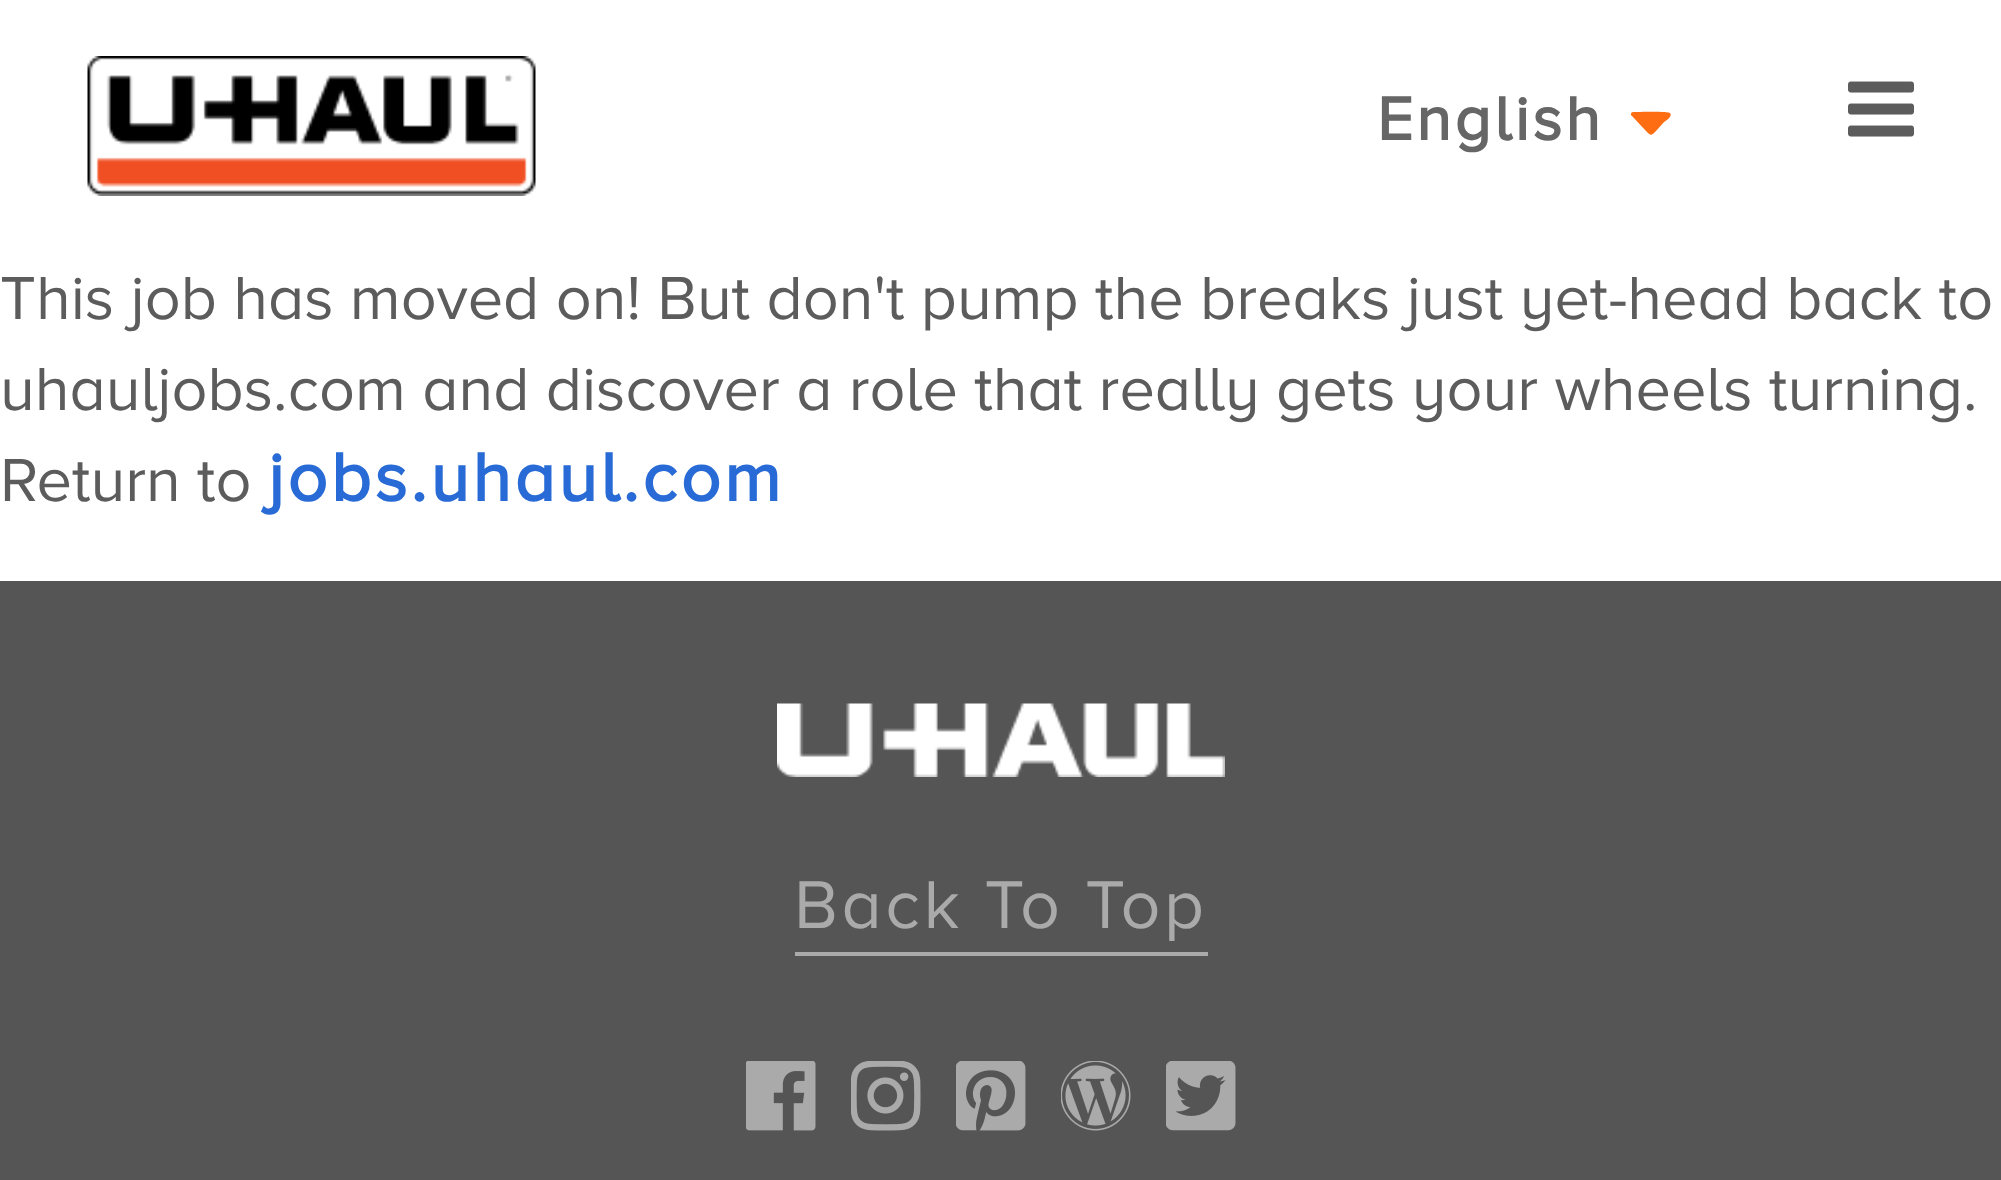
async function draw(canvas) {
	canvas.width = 2001;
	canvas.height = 1180;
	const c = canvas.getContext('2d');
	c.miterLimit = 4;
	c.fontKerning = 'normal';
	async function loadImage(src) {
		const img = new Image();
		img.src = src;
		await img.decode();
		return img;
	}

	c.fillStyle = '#fff';
	c.fillRect(0, 0, 2001, 1180);
	c.drawImage(await loadImage('img1.png'), 87, 56, 449, 140);
	c.letterSpacing = '3.5px';
	c.font = 'bold 63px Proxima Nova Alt';
	c.fillStyle = '#666';
	c.fillText('English', 1377, 140);
	c.fillStyle = '#ff6d12';
	c.beginPath();
	c.moveTo(1670, 113);
	c.bezierCurveTo(1673, 116, 1666, 121, 1664, 122);
	c.lineTo(1656, 131);
	c.bezierCurveTo(1651, 136, 1651, 136, 1646, 131);
	c.lineTo(1632, 116);
	c.bezierCurveTo(1630, 115, 1631, 112, 1633, 112);
	c.bezierCurveTo(1637, 112, 1669, 111, 1670, 113);
	c.closePath();
	c.fill();
	c.drawImage(await loadImage('img2.png'), 1848, 81, 66, 56);
	c.letterSpacing = '0px';
	c.font = '63px Proxima Nova Alt';
	c.fillStyle = '#5c5c5c';
	for (const [text, x, y] of [
		['This job has moved on! But don\'t pump the breaks just yet-head back to', 0, 319],
		['uhauljobs.com and discover a role that really gets your wheels turning.', 0, 410],
		['Return to', 0, 501],
	]) {
		c.fillText(text, x, y);
	}
	c.letterSpacing = '3.5px';
	c.font = 'bold 70px Proxima Nova Alt';
	c.fillStyle = '#286bd6';
	c.fillText('jobs.uhaul.com', 268, 501);
	c.fillStyle = '#555';
	c.fillRect(0, 581, 2001, 599);
	c.drawImage(await loadImage('img3.png'), 777, 703, 448, 74);
	c.font = '70px Proxima Nova Alt';
	c.fillStyle = '#aaa';
	c.fillText('Back To Top', 794, 928);
	c.fillRect(795, 952, 413, 4);
	c.drawImage(await loadImage('img4.png'), 746, 1061, 70, 70);
	c.drawImage(await loadImage('img5.png'), 851, 1061, 70, 70);
	c.drawImage(await loadImage('img6.png'), 956, 1061, 70, 70);
	c.drawImage(await loadImage('img7.png'), 1061, 1061, 70, 70);
	c.drawImage(await loadImage('img8.png'), 1166, 1061, 70, 70);
}

draw(document.querySelector('canvas'));
